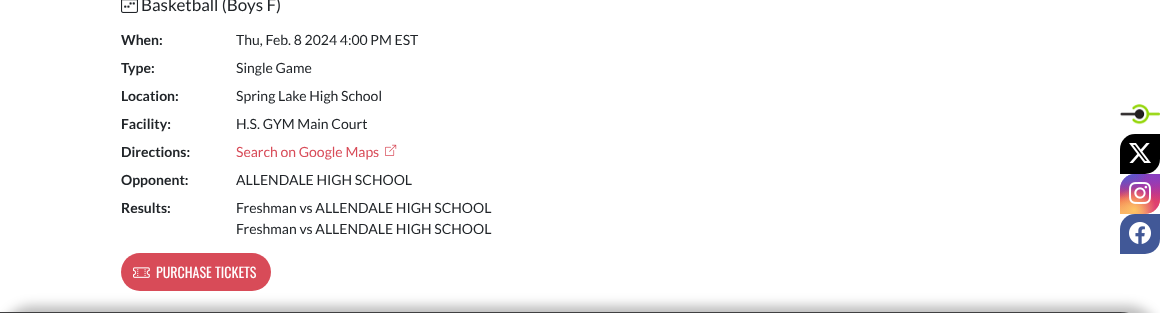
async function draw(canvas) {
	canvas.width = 1160;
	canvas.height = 313;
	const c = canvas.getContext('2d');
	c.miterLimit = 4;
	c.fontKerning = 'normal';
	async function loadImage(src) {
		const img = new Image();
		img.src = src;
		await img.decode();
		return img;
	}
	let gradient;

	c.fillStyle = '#fff';
	c.fillRect(0, 0, 1160, 313);
	c.drawImage(await loadImage('img1.png'), 121, 0, 17, 13);
	c.font = '17px Lato';
	c.fillStyle = '#212529';
	c.fillText('Basketball (Boys F)', 141, 11);
	c.font = 'bold 14px Lato';
	c.fillText('When:', 121, 45);
	c.font = '14px Lato';
	c.fillText('Thu, Feb. 8 2024 4:00 PM EST', 236, 45);
	c.font = 'bold 14px Lato';
	c.fillText('Type:', 121, 73);
	c.font = '14px Lato';
	c.fillText('Single Game', 236, 73);
	c.font = 'bold 14px Lato';
	c.fillText('Location:', 121, 101);
	c.font = '14px Lato';
	c.fillText('Spring Lake High School', 236, 101);
	c.font = 'bold 14px Lato';
	c.fillText('Facility:', 121, 129);
	c.font = '14px Lato';
	c.fillText('H.S. GYM Main Court', 236, 129);
	c.font = 'bold 14px Lato';
	c.fillText('Directions:', 121, 157);
	c.font = '14px Lato';
	c.fillStyle = '#d84b58';
	c.fillText('Search on Google Maps', 236, 157);
	c.drawImage(await loadImage('img2.png'), 385, 144, 12, 12);
	c.font = 'bold 14px Lato';
	c.fillStyle = '#212529';
	c.fillText('Opponent:', 121, 185);
	c.font = '14px Lato';
	c.fillText('ALLENDALE HIGH SCHOOL', 236, 185);
	c.font = 'bold 14px Lato';
	c.fillText('Results:', 121, 213);
	c.font = '14px Lato';
	c.fillText('Freshman vs ALLENDALE HIGH SCHOOL', 236, 213);
	c.fillText('Freshman vs ALLENDALE HIGH SCHOOL', 236, 234);
	c.fillStyle = '#d84b58';
	c.beginPath();
	c.roundRect(121, 253, 150, 38, 19);
	c.fill();
	c.drawImage(await loadImage('img3.png'), 133, 267, 17, 11);
	c.font = '14px Oswald';
	c.fillStyle = '#fff';
	c.fillText('PURCHASE TICKETS', 156, 278);
	c.drawImage(await loadImage('img4.png'), 1120, 104, 40, 21);
	c.fillStyle = '#000';
	c.beginPath();
	c.roundRect(1120, 134, 40, 40, [15, 0, 15, 0]);
	c.fill();
	c.drawImage(await loadImage('img5.png'), 1129, 143, 22, 20);
	gradient = c.createLinearGradient(1140, 174, 1140, 214);
	gradient.addColorStop(0, '#6559ca');
	gradient.addColorStop(0.3, '#bc318f');
	gradient.addColorStop(0.5, '#e33f5f');
	gradient.addColorStop(0.7, '#f77638');
	gradient.addColorStop(1, '#fec66d');
	c.fillStyle = gradient;
	c.beginPath();
	c.roundRect(1120, 174, 40, 40, [15, 0, 15, 0]);
	c.fill();
	gradient = c.createRadialGradient(1160, 214, 0, 1160, 214, 57);
	gradient.addColorStop(0, '#d9317a');
	gradient.addColorStop(1, '#d9317a00');
	c.fillStyle = gradient;
	c.beginPath();
	c.roundRect(1120, 174, 40, 40, [15, 0, 15, 0]);
	c.fill();
	gradient = c.createRadialGradient(1144, 83, 0, 1144, 83, 34);
	gradient.addColorStop(0, '#893dc2');
	gradient.addColorStop(0.5, '#893dc200');
	c.fillStyle = gradient;
	c.beginPath();
	c.roundRect(1120, 174, 40, 40, [15, 0, 15, 0]);
	c.save();
	c.clip();
	c.scale(1, 68 / 34);
	c.fillRect(0, 0, 1160, 157);
	c.restore();
	gradient = c.createRadialGradient(1160, 174, 0, 1160, 174, 57);
	gradient.addColorStop(0, '#893dc2');
	gradient.addColorStop(0.5, '#893dc200');
	c.fillStyle = gradient;
	c.fillRect(1135, 174, 25, 28);
	gradient = c.createRadialGradient(1128, 81.53, 0, 1128, 81.53, 45);
	gradient.addColorStop(0, '#5258cf');
	gradient.addColorStop(0.5, '#5258cf00');
	c.fillStyle = gradient;
	c.beginPath();
	c.roundRect(1120, 174, 40, 40, [15, 0, 15, 0]);
	c.save();
	c.clip();
	c.scale(1, 85 / 45);
	c.fillRect(0, 0, 1160, 166);
	c.restore();
	gradient = c.createRadialGradient(1120, 131.66, 0, 1120, 131.66, 57);
	gradient.addColorStop(0, '#5258cf');
	gradient.addColorStop(0.5, '#5258cf00');
	c.fillStyle = gradient;
	c.beginPath();
	c.roundRect(1120, 174, 40, 40, [15, 0, 15, 0]);
	c.save();
	c.clip();
	c.scale(1, 71 / 57);
	c.fillRect(0, 0, 1160, 252);
	c.restore();
	gradient = c.createRadialGradient(1120, 230, 0, 1120, 230, 69);
	gradient.addColorStop(0, '#fec564');
	gradient.addColorStop(0.5, '#fec56400');
	c.fillStyle = gradient;
	c.fillRect(1120, 196, 29, 18);
	gradient = c.createRadialGradient(1134, 210, 0, 1134, 210, 44);
	gradient.addColorStop(0, '#fec564');
	gradient.addColorStop(0.5, '#fec56400');
	c.fillStyle = gradient;
	c.beginPath();
	c.roundRect(1120, 174, 40, 40, [15, 0, 15, 0]);
	c.fill();
	c.drawImage(await loadImage('img6.png'), 1129, 182, 22, 22);
	c.fillStyle = '#415897';
	c.beginPath();
	c.roundRect(1120, 214, 40, 40, [15, 0, 15, 0]);
	c.fill();
	c.drawImage(await loadImage('img7.png'), 1129, 222, 22, 22);
	c.fillStyle = '#00000045';
	c.filter = 'blur(6px)';
	c.beginPath();
	c.roundRect(0, 306, 1160, 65, 40);
	c.fill();
	c.filter = 'none';
	c.fillStyle = '#404041';
	c.beginPath();
	c.moveTo(0, 312);
	c.lineTo(1120, 312);
	c.bezierCurveTo(1142, 312, 1160, 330, 1160, 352);
	c.lineTo(1160, 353);
	c.lineTo(0, 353);
	c.closePath();
	c.fill();
}

draw(document.querySelector('canvas'));
